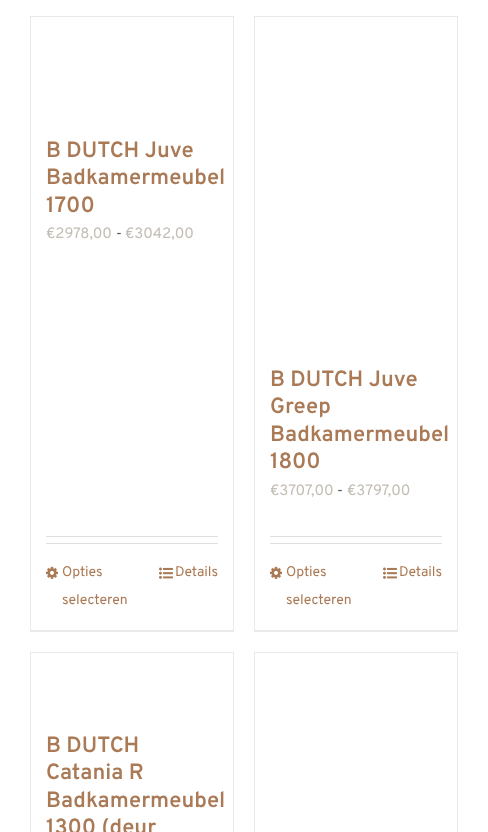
async function draw(canvas) {
	canvas.width = 488;
	canvas.height = 832;
	const c = canvas.getContext('2d');
	c.miterLimit = 4;
	c.fontKerning = 'normal';
	async function loadImage(src) {
		const img = new Image();
		img.src = src;
		await img.decode();
		return img;
	}

	c.fillStyle = '#fff';
	c.fillRect(0, 0, 488, 832);
	for (const [x, y, w, h, color] of [
		[30, 16, 204, 1, '#ebeaea'],
		[233, 16, 1, 616, '#ebeaea'],
		[30, 630, 204, 2, '#ebeaea'],
		[30, 16, 1, 616, '#ebeaea'],
	]) {
		c.fillStyle = color;
		c.fillRect(x, y, w, h);
	}
	c.font = '600 22px Overpass';
	c.fillStyle = '#aa7955';
	for (const [text, x, y] of [
		['B DUTCH Juve', 46, 157],
		['Badkamermeubel', 46, 184],
		['1700', 46, 212],
	]) {
		c.fillText(text, x, y);
	}
	c.font = '15px Overpass';
	c.fillStyle = '#c3beb4';
	c.fillText('€2978,00', 46, 238);
	c.fillStyle = '#575756';
	c.fillText('-', 116, 238);
	c.fillStyle = '#c3beb4';
	c.fillText('€3042,00', 125, 238);
	c.fillStyle = '#e0dede';
	c.fillRect(46, 536, 172, 1);
	c.fillRect(46, 543, 172, 1);
	c.drawImage(await loadImage('img1.png'), 46, 566, 12, 13);
	c.font = '14px Overpass';
	c.fillStyle = '#aa7955';
	c.fillText('Opties', 62, 576);
	c.fillText('selecteren', 62, 604);
	c.drawImage(await loadImage('img2.png'), 159, 567, 14, 12);
	c.fillText('Details', 175, 576);
	for (const [x, y, w, h, color] of [
		[254, 16, 204, 1, '#ebeaea'],
		[457, 16, 1, 616, '#ebeaea'],
		[254, 630, 204, 2, '#ebeaea'],
		[254, 16, 1, 616, '#ebeaea'],
	]) {
		c.fillStyle = color;
		c.fillRect(x, y, w, h);
	}
	c.font = '600 22px Overpass';
	c.fillStyle = '#aa7955';
	for (const [text, x, y] of [
		['B DUTCH Juve', 270, 386],
		['Greep', 270, 413],
		['Badkamermeubel', 270, 441],
		['1800', 270, 468],
	]) {
		c.fillText(text, x, y);
	}
	c.font = '15px Overpass';
	c.fillStyle = '#c3beb4';
	c.fillText('€3707,00', 270, 495);
	c.fillStyle = '#575756';
	c.fillText('-', 337, 495);
	c.fillStyle = '#c3beb4';
	c.fillText('€3797,00', 347, 495);
	c.fillStyle = '#e0dede';
	c.fillRect(270, 536, 172, 1);
	c.fillRect(270, 543, 172, 1);
	c.drawImage(await loadImage('img1.png'), 270, 566, 12, 13);
	c.font = '14px Overpass';
	c.fillStyle = '#aa7955';
	c.fillText('Opties', 286, 576);
	c.fillText('selecteren', 286, 604);
	c.drawImage(await loadImage('img2.png'), 383, 567, 14, 12);
	c.fillText('Details', 399, 576);
	for (const [x, y, w, h, color] of [
		[30, 652, 204, 1, '#ebeaea'],
		[233, 652, 1, 180, '#ebeaea'],
		[30, 652, 1, 180, '#ebeaea'],
	]) {
		c.fillStyle = color;
		c.fillRect(x, y, w, h);
	}
	c.font = '600 22px Overpass';
	c.fillStyle = '#aa7955';
	for (const [text, x, y] of [
		['B DUTCH', 46, 752],
		['Catania R', 46, 779],
		['Badkamermeubel', 46, 807],
		['1300 (deur', 46, 834],
	]) {
		c.fillText(text, x, y);
	}
	for (const [x, y, w, h, color] of [
		[254, 652, 204, 1, '#ebeaea'],
		[457, 652, 1, 180, '#ebeaea'],
		[254, 652, 1, 180, '#ebeaea'],
	]) {
		c.fillStyle = color;
		c.fillRect(x, y, w, h);
	}
}

draw(document.querySelector('canvas'));
